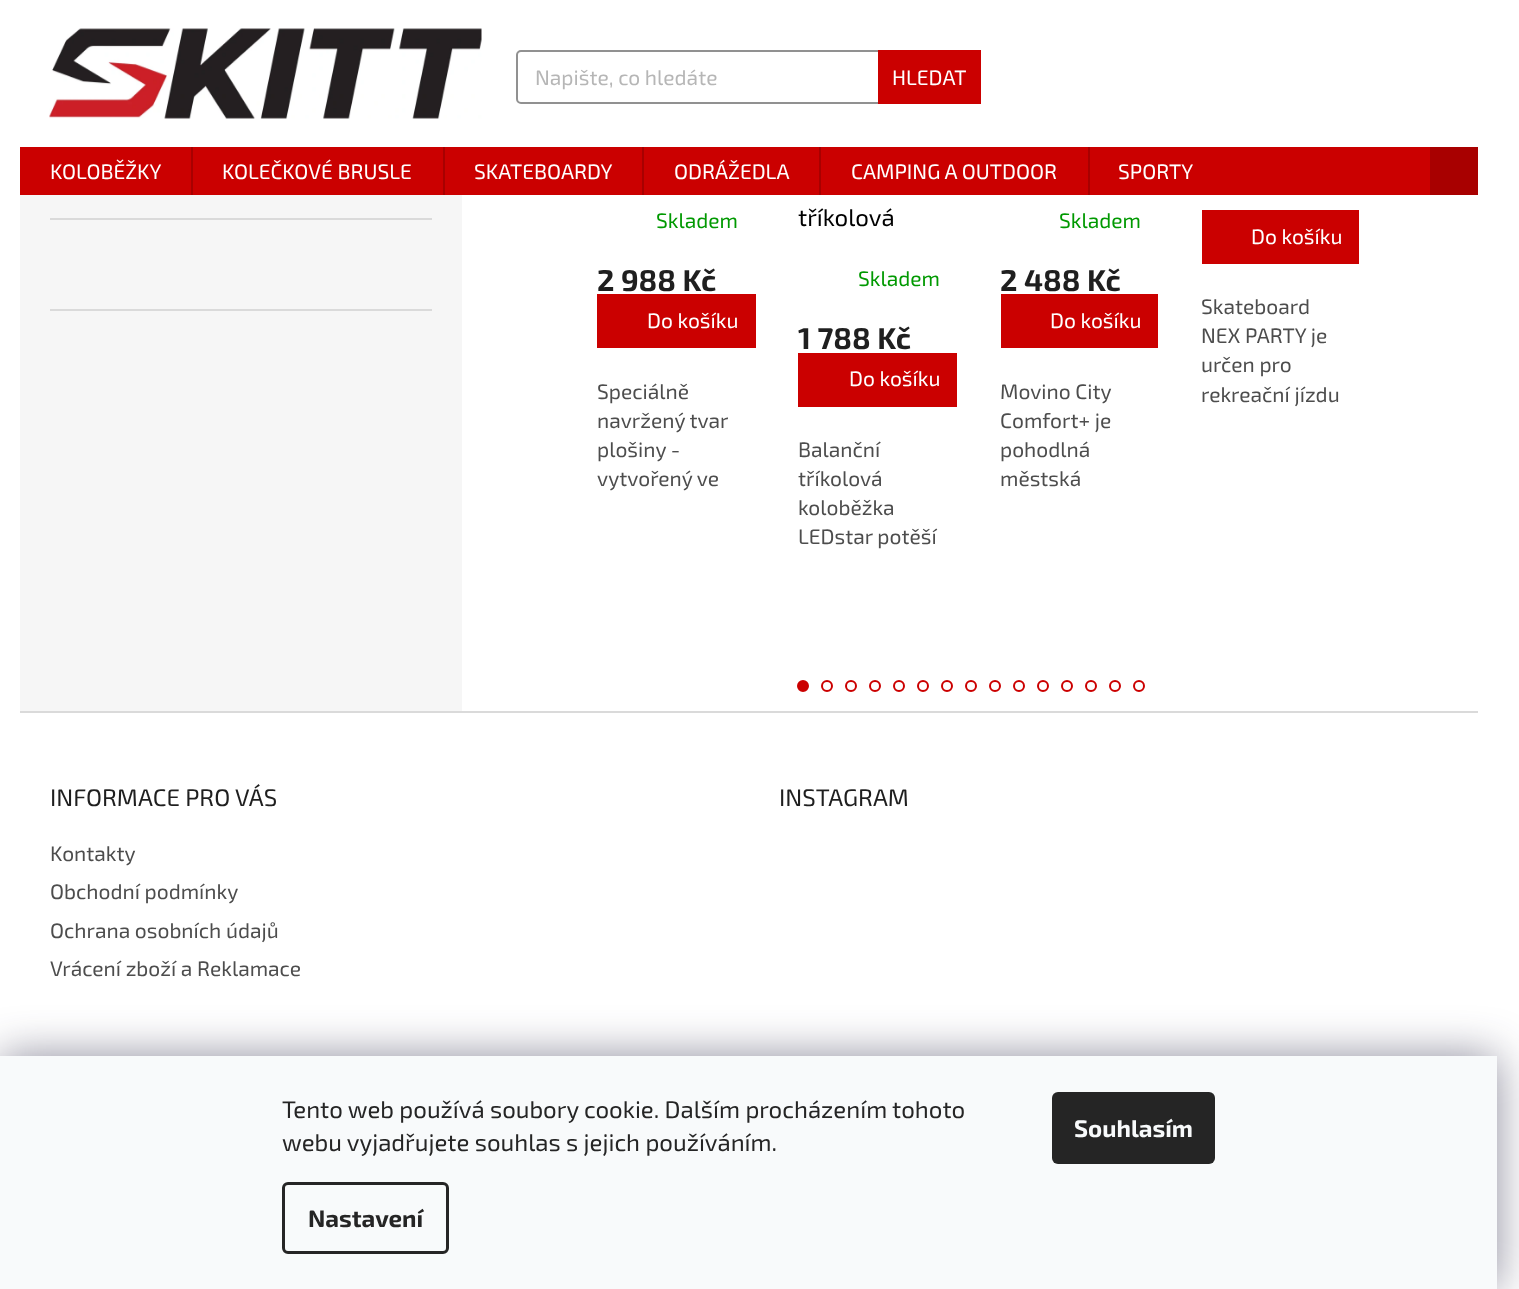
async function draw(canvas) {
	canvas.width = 1519;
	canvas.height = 1289;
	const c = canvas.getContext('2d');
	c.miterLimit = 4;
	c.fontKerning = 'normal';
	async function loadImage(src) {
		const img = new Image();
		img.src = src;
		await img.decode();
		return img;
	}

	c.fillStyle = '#fff';
	c.fillRect(0, 0, 1519, 1289);
	c.drawImage(await loadImage('img1.png'), 49, 28, 433, 91);
	c.beginPath();
	c.roundRect(517, 51, 463, 52, 4);
	c.strokeStyle = '#919191';
	c.lineWidth = 2;
	c.stroke();
	c.font = '21px "Exo 2"';
	c.fillStyle = '#b6b6b6';
	c.fillText('Napište, co hledáte', 535, 85);
	c.fillStyle = '#cb0000';
	c.fillRect(878, 50, 103, 54);
	c.fillStyle = '#fff';
	c.fillText('HLEDAT', 892, 85);
	c.fillStyle = '#cb0000';
	c.fillRect(20, 147, 1410, 48);
	c.fillStyle = '#fff';
	c.fillText('KOLOBĚŽKY', 50, 179);
	c.fillStyle = '#a80000';
	c.fillRect(191, 147, 2, 48);
	c.fillStyle = '#fff';
	c.fillText('KOLEČKOVÉ BRUSLE', 222, 179);
	c.fillStyle = '#a80000';
	c.fillRect(443, 147, 2, 48);
	c.fillStyle = '#fff';
	c.fillText('SKATEBOARDY', 474, 179);
	c.fillStyle = '#a80000';
	c.fillRect(642, 147, 2, 48);
	c.fillStyle = '#fff';
	c.fillText('ODRÁŽEDLA', 674, 179);
	c.fillStyle = '#a80000';
	c.fillRect(819, 147, 2, 48);
	c.fillStyle = '#fff';
	c.fillText('CAMPING A OUTDOOR', 851, 179);
	c.fillStyle = '#a80000';
	c.fillRect(1088, 147, 2, 48);
	c.fillStyle = '#fff';
	c.fillText('SPORTY', 1118, 179);
	for (const [x, y, w, h, color] of [
		[1430, 147, 48, 48, '#a80000'],
		[20, 195, 442, 516, '#f6f6f6'],
		[50, 218, 382, 2, '#dadada'],
		[50, 309, 382, 2, '#dadada'],
	]) {
		c.fillStyle = color;
		c.fillRect(x, y, w, h);
	}
	c.fillStyle = '#009901';
	c.fillText('Skladem', 656, 228);
	c.font = 'bold 30px "Exo 2"';
	c.fillStyle = '#1f1f1f';
	c.fillText('2 988 Kč', 597, 291);
	c.fillStyle = '#cb0000';
	c.fillRect(597, 294, 159, 54);
	c.font = '21px "Exo 2"';
	c.fillStyle = '#fff';
	c.fillText('Do košíku', 647, 328);
	c.fillStyle = '#4d4d4d';
	for (const [text, x, y] of [
		['Speciálně', 597, 399],
		['navržený tvar', 597, 428],
		['plošiny -', 597, 457],
		['vytvořený ve', 597, 486],
	]) {
		c.fillText(text, x, y);
	}
	c.font = '24px "Exo 2"';
	c.fillStyle = '#000';
	c.fillText('tříkolová', 798, 226);
	c.font = '21px "Exo 2"';
	c.fillStyle = '#009901';
	c.fillText('Skladem', 858, 286);
	c.font = 'bold 30px "Exo 2"';
	c.fillStyle = '#1f1f1f';
	c.fillText('1 788 Kč', 798, 349);
	c.fillStyle = '#cb0000';
	c.fillRect(798, 353, 159, 54);
	c.font = '21px "Exo 2"';
	c.fillStyle = '#fff';
	c.fillText('Do košíku', 849, 386);
	c.fillStyle = '#4d4d4d';
	for (const [text, x, y] of [
		['Balanční', 798, 457],
		['tříkolová', 798, 486],
		['koloběžka', 798, 515],
		['LEDstar potěší', 798, 544],
	]) {
		c.fillText(text, x, y);
	}
	c.fillStyle = '#009901';
	c.fillText('Skladem', 1059, 228);
	c.font = 'bold 30px "Exo 2"';
	c.fillStyle = '#1f1f1f';
	c.fillText('2 488 Kč', 1000, 291);
	c.fillStyle = '#cb0000';
	c.fillRect(1001, 294, 157, 54);
	c.font = '21px "Exo 2"';
	c.fillStyle = '#fff';
	c.fillText('Do košíku', 1050, 328);
	c.fillStyle = '#4d4d4d';
	for (const [text, x, y] of [
		['Movino City', 1000, 399],
		['Comfort+ je', 1000, 428],
		['pohodlná', 1000, 457],
		['městská', 1000, 486],
	]) {
		c.fillText(text, x, y);
	}
	c.fillStyle = '#cb0000';
	c.fillRect(1202, 210, 157, 54);
	c.fillStyle = '#fff';
	c.fillText('Do košíku', 1251, 244);
	c.fillStyle = '#4d4d4d';
	for (const [text, x, y] of [
		['Skateboard', 1201, 314],
		['NEX PARTY je', 1201, 343],
		['určen pro', 1201, 372],
		['rekreační jízdu', 1201, 402],
	]) {
		c.fillText(text, x, y);
	}
	c.fillStyle = '#cb0000';
	c.beginPath();
	c.arc(803, 686, 5, 0, 2 * Math.PI);
	c.fill();
	c.strokeStyle = '#cb0000';
	c.stroke();
	c.beginPath();
	c.arc(827, 686, 5, 0, 2 * Math.PI);
	c.stroke();
	c.beginPath();
	c.arc(851, 686, 5, 0, 2 * Math.PI);
	c.stroke();
	c.beginPath();
	c.arc(875, 686, 5, 0, 2 * Math.PI);
	c.stroke();
	c.beginPath();
	c.arc(899, 686, 5, 0, 2 * Math.PI);
	c.stroke();
	c.beginPath();
	c.arc(923, 686, 5, 0, 2 * Math.PI);
	c.stroke();
	c.beginPath();
	c.arc(947, 686, 5, 0, 2 * Math.PI);
	c.stroke();
	c.beginPath();
	c.arc(971, 686, 5, 0, 2 * Math.PI);
	c.stroke();
	c.beginPath();
	c.arc(995, 686, 5, 0, 2 * Math.PI);
	c.stroke();
	c.beginPath();
	c.arc(1019, 686, 5, 0, 2 * Math.PI);
	c.stroke();
	c.beginPath();
	c.arc(1043, 686, 5, 0, 2 * Math.PI);
	c.stroke();
	c.beginPath();
	c.arc(1067, 686, 5, 0, 2 * Math.PI);
	c.stroke();
	c.beginPath();
	c.arc(1091, 686, 5, 0, 2 * Math.PI);
	c.stroke();
	c.beginPath();
	c.arc(1115, 686, 5, 0, 2 * Math.PI);
	c.stroke();
	c.beginPath();
	c.arc(1139, 686, 5, 0, 2 * Math.PI);
	c.stroke();
	c.fillStyle = '#dadada';
	c.fillRect(20, 711, 1458, 2);
	c.font = '24px "Exo 2"';
	c.fillStyle = '#1f1f1f';
	c.fillText('INFORMACE PRO VÁS', 50, 806);
	c.font = '21px "Exo 2"';
	c.fillStyle = '#4d4d4d';
	for (const [text, x, y] of [
		['Kontakty', 50, 861],
		['Obchodní podmínky', 50, 899],
		['Ochrana osobních údajů', 50, 938],
		['Vrácení zboží a Reklamace', 50, 976],
	]) {
		c.fillText(text, x, y);
	}
	c.font = '24px "Exo 2"';
	c.fillStyle = '#1f1f1f';
	c.fillText('INSTAGRAM', 779, 806);
	c.fillStyle = '#1b193980';
	c.filter = 'blur(22.5px)';
	c.beginPath();
	c.rect(0, 1056, 1497, 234);
	c.fill();
	c.filter = 'none';
	c.fillStyle = '#f8fafb';
	c.fillRect(0, 1056, 1497, 233);
	c.fillStyle = '#252525';
	c.fillText('Tento web používá soubory cookie. Dalším procházením tohoto', 282, 1118);
	c.fillText('webu vyjadřujete souhlas s jejich používáním.', 282, 1151);
	c.beginPath();
	c.roundRect(283.5, 1183.5, 164, 69, 4.5);
	c.strokeStyle = '#252525';
	c.lineWidth = 3;
	c.stroke();
	c.font = 'bold 24px "Exo 2"';
	c.fillText('Nastavení', 308, 1227);
	c.beginPath();
	c.roundRect(1052, 1092, 163, 72, 6);
	c.fill();
	c.fillStyle = '#f8fafb';
	c.fillText('Souhlasím', 1074, 1137);
}

draw(document.querySelector('canvas'));
